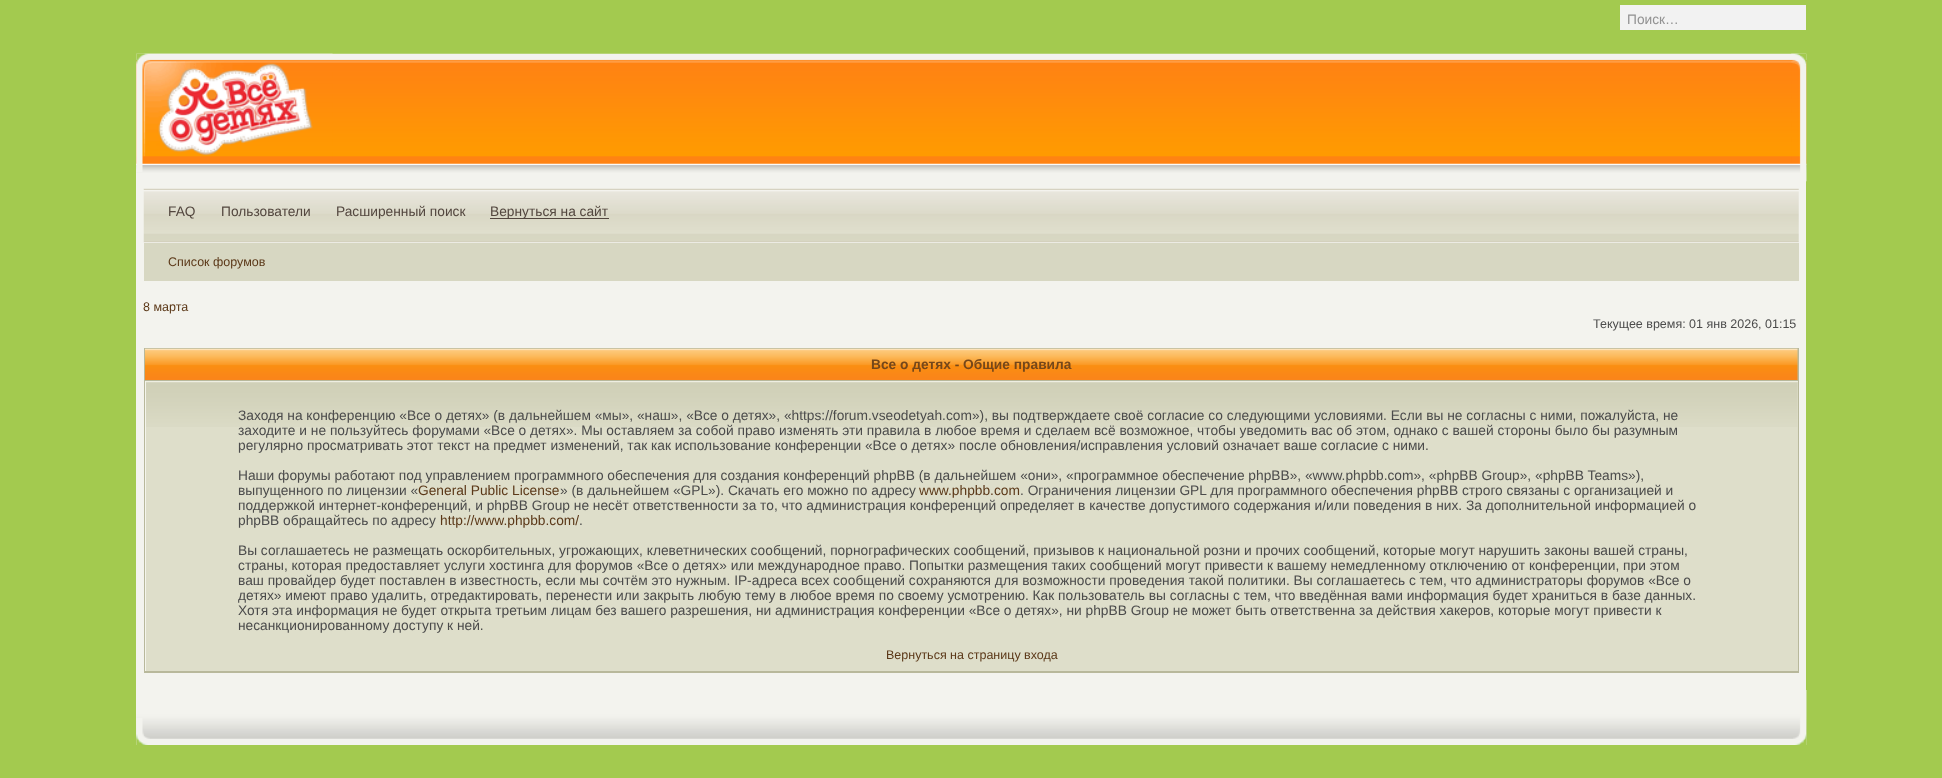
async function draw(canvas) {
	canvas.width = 1942;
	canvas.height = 778;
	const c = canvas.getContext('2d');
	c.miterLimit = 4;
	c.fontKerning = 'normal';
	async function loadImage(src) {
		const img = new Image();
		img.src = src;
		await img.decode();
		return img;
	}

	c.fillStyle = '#a3ca4f';
	c.fillRect(0, 0, 1942, 778);
	c.fillStyle = '#f2f2f2';
	c.fillRect(1620, 5, 186, 25);
	c.font = '13.75px Liberation Sans';
	c.fillStyle = '#929292';
	c.fillText('Поиск…', 1627, 24);
	c.fillStyle = '#f3f3ee';
	c.fillRect(136, 54, 1670, 691);
	c.drawImage(await loadImage('img1.png'), 136, 690, 1671, 55);
	c.drawImage(await loadImage('img2.png'), 136, 718, 14, 27);
	c.drawImage(await loadImage('img3.png'), 1793, 690, 14, 55);
	c.drawImage(await loadImage('img4.png'), 136, 53, 1671, 129);
	c.drawImage(await loadImage('img5.png'), 1791, 53, 16, 129);
	c.drawImage(await loadImage('img6.png'), 136, 53, 197, 119);
	c.drawImage(await loadImage('img7.png'), 143, 188, 1656, 55);
	c.fillStyle = '#53473f';
	for (const [text, x, y] of [
		['FAQ', 168, 216],
		['Пользователи', 221, 216],
		['Расширенный поиск', 336, 216],
	]) {
		c.fillText(text, x, y);
	}
	c.fillRect(490, 218, 119, 1);
	c.fillText('Вернуться на сайт', 490, 216);
	c.fillStyle = '#d7d7c2';
	c.fillRect(144, 243, 1655, 38);
	c.font = '12.5px Liberation Sans';
	c.fillStyle = '#5b3818';
	c.fillText('Список форумов', 168, 266);
	c.fillText('8 марта', 143, 311);
	c.fillStyle = '#4b4b4b';
	c.fillText('Текущее время: 01 янв 2026, 01:15', 1593, 328);
	c.fillStyle = '#b8b89b';
	c.fillRect(144, 348, 1655, 325);
	c.drawImage(await loadImage('img8.png'), 145, 348, 1653, 32);
	c.font = 'bold 13.75px Liberation Sans';
	c.fillStyle = '#75471a';
	c.fillText('Все о детях - Общие правила', 871, 369);
	c.fillStyle = '#dedeca';
	c.fillRect(146, 382, 1652, 289);
	c.drawImage(await loadImage('img9.png'), 146, 382, 1652, 45);
	c.fillStyle = '#eeeee2';
	c.fillRect(145, 381, 1653, 1);
	c.fillStyle = '#f4f4eb';
	c.fillRect(145, 381, 1, 290);
	c.font = '13.75px Liberation Sans';
	c.fillStyle = '#4b4b4b';
	for (const [text, x, y] of [
		['Заходя на конференцию «Все о детях» (в дальнейшем «мы», «наш», «Все о детях», «https://forum.vseodetyah.com»), вы подтверждаете своё согласие со следующими условиями. Если вы не согласны с ними, пожалуйста, не', 238, 420],
		['заходите и не пользуйтесь форумами «Все о детях». Мы оставляем за собой право изменять эти правила в любое время и сделаем всё возможное, чтобы уведомить вас об этом, однако с вашей стороны было бы разумным', 238, 435],
		['регулярно просматривать этот текст на предмет изменений, так как использование конференции «Все о детях» после обновления/исправления условий означает ваше согласие с ними.', 238, 450],
		['Наши форумы работают под управлением программного обеспечения для создания конференций phpBB (в дальнейшем «они», «программное обеспечение phpBB», «www.phpbb.com», «phpBB Group», «phpBB Teams»),', 238, 480],
		['выпущенного по лицензии «', 238, 495],
	]) {
		c.fillText(text, x, y);
	}
	c.fillStyle = '#5b3818';
	c.fillText('General Public License', 418, 495);
	c.fillStyle = '#4b4b4b';
	c.fillText('» (в дальнейшем «GPL»). Скачать его можно по адресу', 560, 495);
	c.fillStyle = '#5b3818';
	c.fillText('www.phpbb.com', 919, 495);
	c.fillStyle = '#4b4b4b';
	for (const [text, x, y] of [
		['. Ограничения лицензии GPL для программного обеспечения phpBB строго связаны с организацией и', 1020, 495],
		['поддержкой интернет-конференций, и phpBB Group не несёт ответственности за то, что администрация конференций определяет в качестве допустимого содержания и/или поведения в них. За дополнительной информацией о', 238, 510],
		['phpBB обращайтесь по адресу', 238, 525],
	]) {
		c.fillText(text, x, y);
	}
	c.fillStyle = '#5b3818';
	c.fillText('http://www.phpbb.com/', 440, 525);
	c.fillStyle = '#4b4b4b';
	for (const [text, x, y] of [
		['.', 579, 525],
		['Вы соглашаетесь не размещать оскорбительных, угрожающих, клеветнических сообщений, порнографических сообщений, призывов к национальной розни и прочих сообщений, которые могут нарушить законы вашей страны,', 238, 555],
		['страны, которая предоставляет услуги хостинга для форумов «Все о детях» или международное право. Попытки размещения таких сообщений могут привести к вашему немедленному отключению от конференции, при этом', 238, 570],
		['ваш провайдер будет поставлен в известность, если мы сочтём это нужным. IP-адреса всех сообщений сохраняются для возможности проведения такой политики. Вы соглашаетесь с тем, что администраторы форумов «Все о', 238, 585],
		['детях» имеют право удалить, отредактировать, перенести или закрыть любую тему в любое время по своему усмотрению. Как пользователь вы согласны с тем, что введённая вами информация будет храниться в базе данных.', 238, 600],
		['Хотя эта информация не будет открыта третьим лицам без вашего разрешения, ни администрация конференции «Все о детях», ни phpBB Group не может быть ответственна за действия хакеров, которые могут привести к', 238, 615],
		['несанкционированному доступу к ней.', 238, 630],
	]) {
		c.fillText(text, x, y);
	}
	c.font = '12.5px Liberation Sans';
	c.fillStyle = '#5b3818';
	c.fillText('Вернуться на страницу входа', 886, 659);
}

draw(document.querySelector('canvas'));
